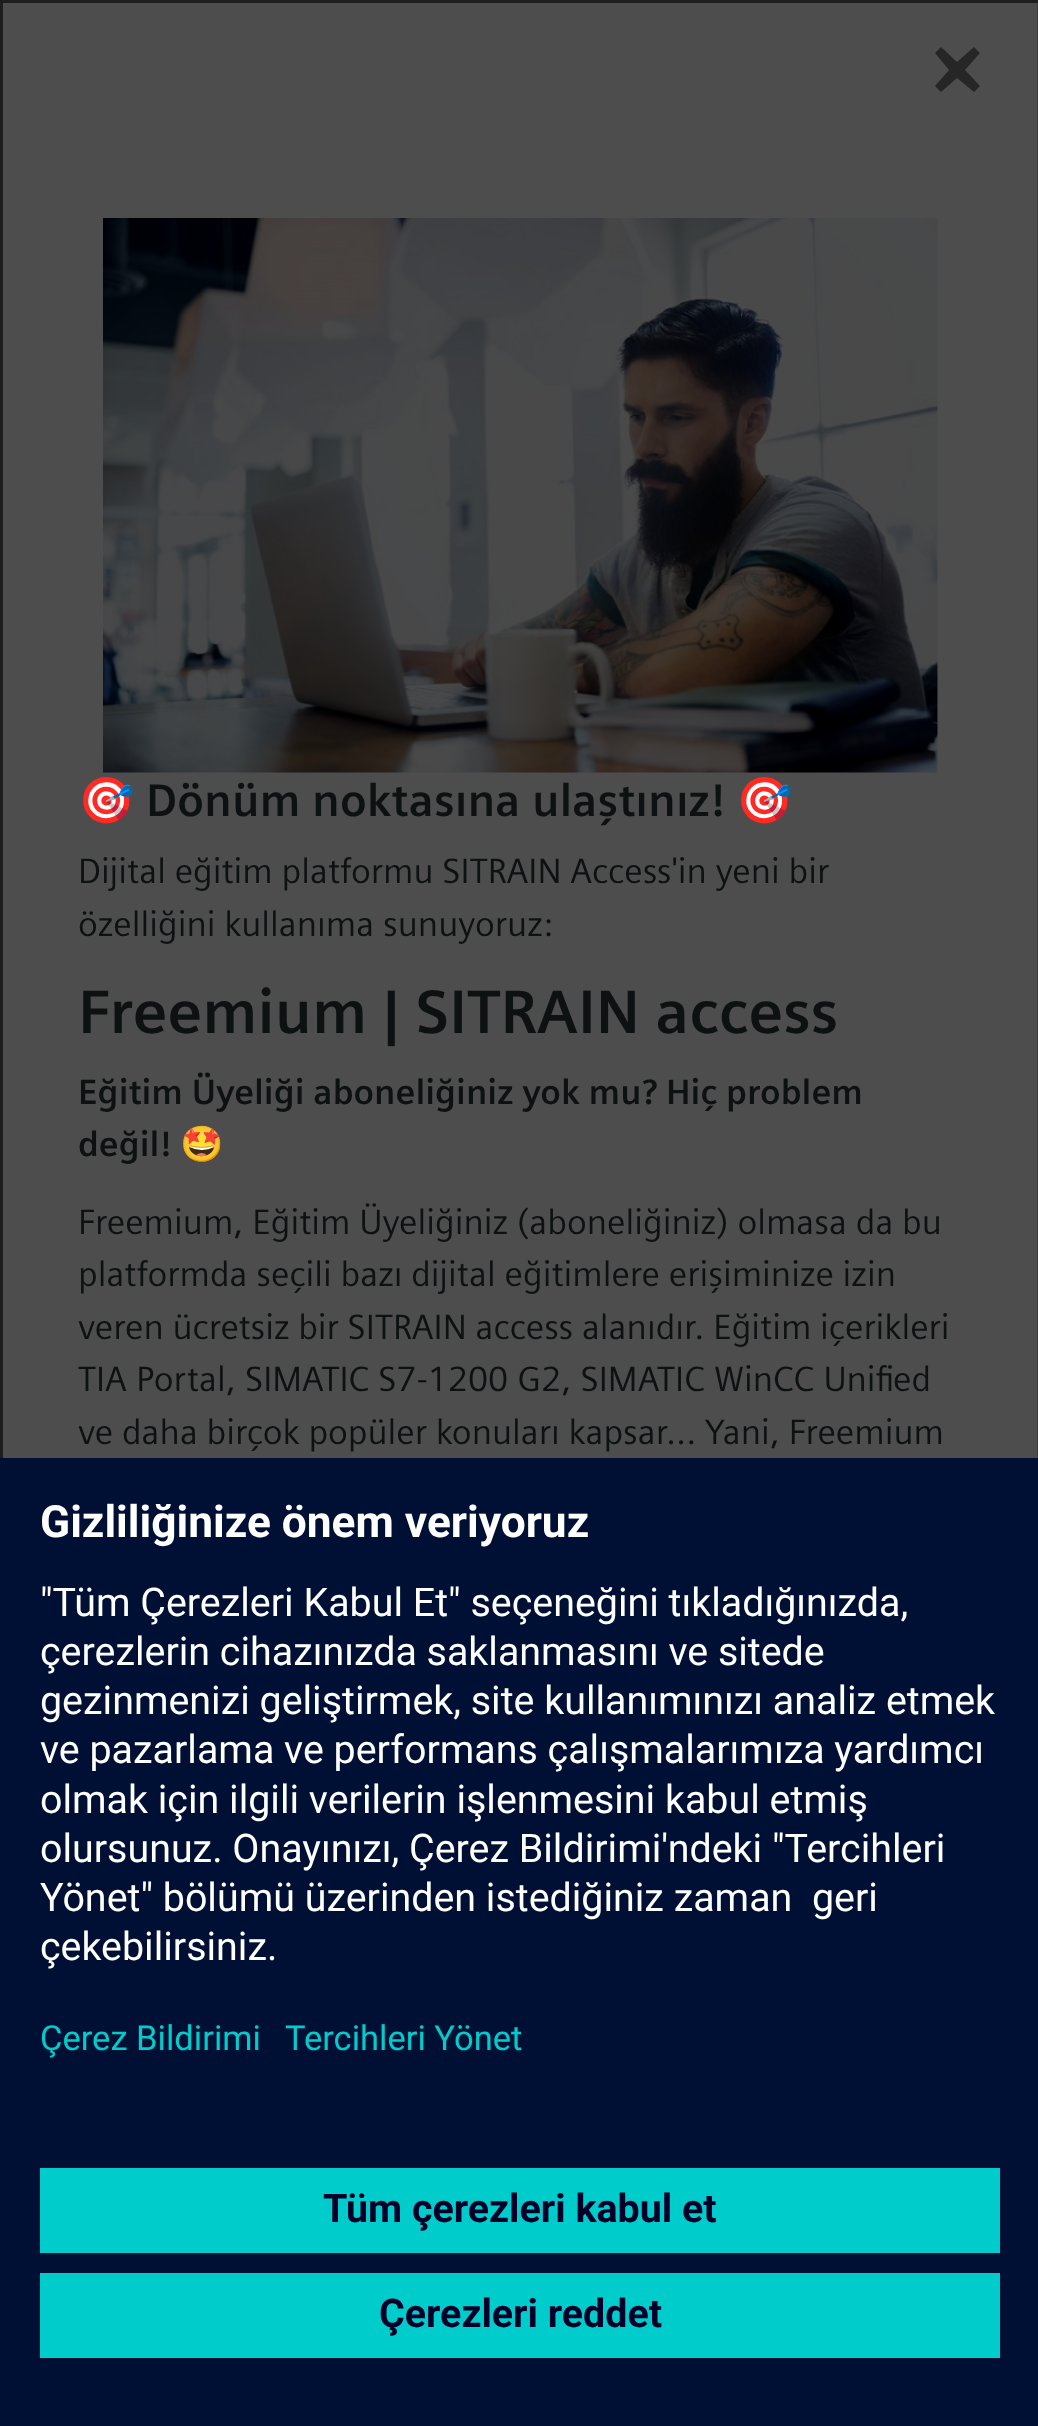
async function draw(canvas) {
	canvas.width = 1038;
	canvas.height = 2426;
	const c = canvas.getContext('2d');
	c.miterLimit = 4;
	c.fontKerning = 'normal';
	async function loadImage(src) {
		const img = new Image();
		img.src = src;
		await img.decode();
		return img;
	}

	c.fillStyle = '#262626';
	c.fillRect(0, 0, 1038, 2426);
	c.fillStyle = '#4d4d4d';
	c.fillRect(3, 3, 1035, 1455);
	c.strokeStyle = '#00000033';
	c.lineWidth = 3;
	c.strokeRect(1.5, 1.5, 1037, 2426);
	c.fillStyle = '#262626';
	c.beginPath();
	c.moveTo(974, 92);
	c.lineTo(980, 86);
	c.lineTo(965, 70);
	c.lineTo(980, 53);
	c.lineTo(974, 47);
	c.lineTo(957, 62);
	c.lineTo(941, 47);
	c.lineTo(935, 53);
	c.lineTo(949, 70);
	c.lineTo(935, 86);
	c.lineTo(941, 92);
	c.lineTo(957, 78);
	c.closePath();
	c.fill();
	c.drawImage(await loadImage('img1.png'), 103, 218, 835, 555);
	c.font = '45.5px Noto Color Emoji';
	c.fillStyle = '#0e1112';
	c.fillText('🎯', 78, 816);
	c.font = 'bold 45.5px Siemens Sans';
	c.fillText('Dönüm noktasına ulaştınız!', 146, 816);
	c.font = '45.5px Noto Color Emoji';
	c.fillText('🎯', 736, 816);
	c.font = '35px Siemens Sans';
	c.fillText('Dijital eğitim platformu SITRAIN Access\'in yeni bir', 78, 883);
	c.fillText('özelliğini kullanıma sunuyoruz:', 78, 936);
	c.font = 'bold 61.25px Siemens Sans';
	c.fillText('Freemium | SITRAIN access', 78, 1033);
	c.font = 'bold 35px Siemens Sans';
	c.fillText('Eğitim Üyeliği aboneliğiniz yok mu? Hiç problem', 78, 1104);
	c.fillText('değil!', 78, 1156);
	c.font = '35px Noto Color Emoji';
	c.fillText('🤩', 180, 1156);
	c.font = '35px Siemens Sans';
	for (const [text, x, y] of [
		['Freemium, Eğitim Üyeliğiniz (aboneliğiniz) olmasa da bu', 78, 1234],
		['platformda seçili bazı dijital eğitimlere erişiminize izin', 78, 1286],
		['veren ücretsiz bir SITRAIN access alanıdır. Eğitim içerikleri', 78, 1339],
	]) {
		c.fillText(text, x, y);
	}
	c.wordSpacing = '0.5px';
	c.fillText('TIA Portal, SIMATIC S7-1200 G2, SIMATIC WinCC Unified', 78, 1391);
	c.wordSpacing = '0px';
	c.fillText('ve daha birçok popüler konuları kapsar... Yani, Freemium', 78, 1444);
	c.fillStyle = '#001034';
	c.fillRect(0, 1458, 1038, 968);
	c.font = 'bold 44.25px Roboto';
	c.fillStyle = '#fff';
	c.fillText('Gizliliğinize önem veriyoruz', 40, 1537);
	c.font = '39.4px Roboto';
	for (const [text, x, y] of [
		['"Tüm Çerezleri Kabul Et" seçeneğini tıkladığınızda,', 40, 1616],
		['çerezlerin cihazınızda saklanmasını ve sitede', 40, 1665],
		['gezinmenizi geliştirmek, site kullanımınızı analiz etmek', 40, 1714],
		['ve pazarlama ve performans çalışmalarımıza yardımcı', 40, 1763],
		['olmak için ilgili verilerin işlenmesini kabul etmiş', 40, 1813],
		['olursunuz. Onayınızı, Çerez Bildirimi\'ndeki "Tercihleri', 40, 1862],
		['Yönet" bölümü üzerinden istediğiniz zaman  geri', 40, 1911],
		['çekebilirsiniz.', 40, 1960],
	]) {
		c.fillText(text, x, y);
	}
	c.font = '34.5px Roboto';
	c.fillStyle = '#0cc';
	c.fillText('Çerez Bildirimi', 40, 2050);
	c.fillText('Tercihleri Yönet', 285, 2050);
	c.fillRect(40, 2168, 960, 85);
	c.font = 'bold 39.4px Roboto';
	c.fillStyle = '#000028';
	c.fillText('Tüm çerezleri kabul et', 323, 2222);
	c.fillStyle = '#0cc';
	c.fillRect(40, 2273, 960, 85);
	c.fillStyle = '#000028';
	c.fillText('Çerezleri reddet', 379, 2327);
}

draw(document.querySelector('canvas'));
